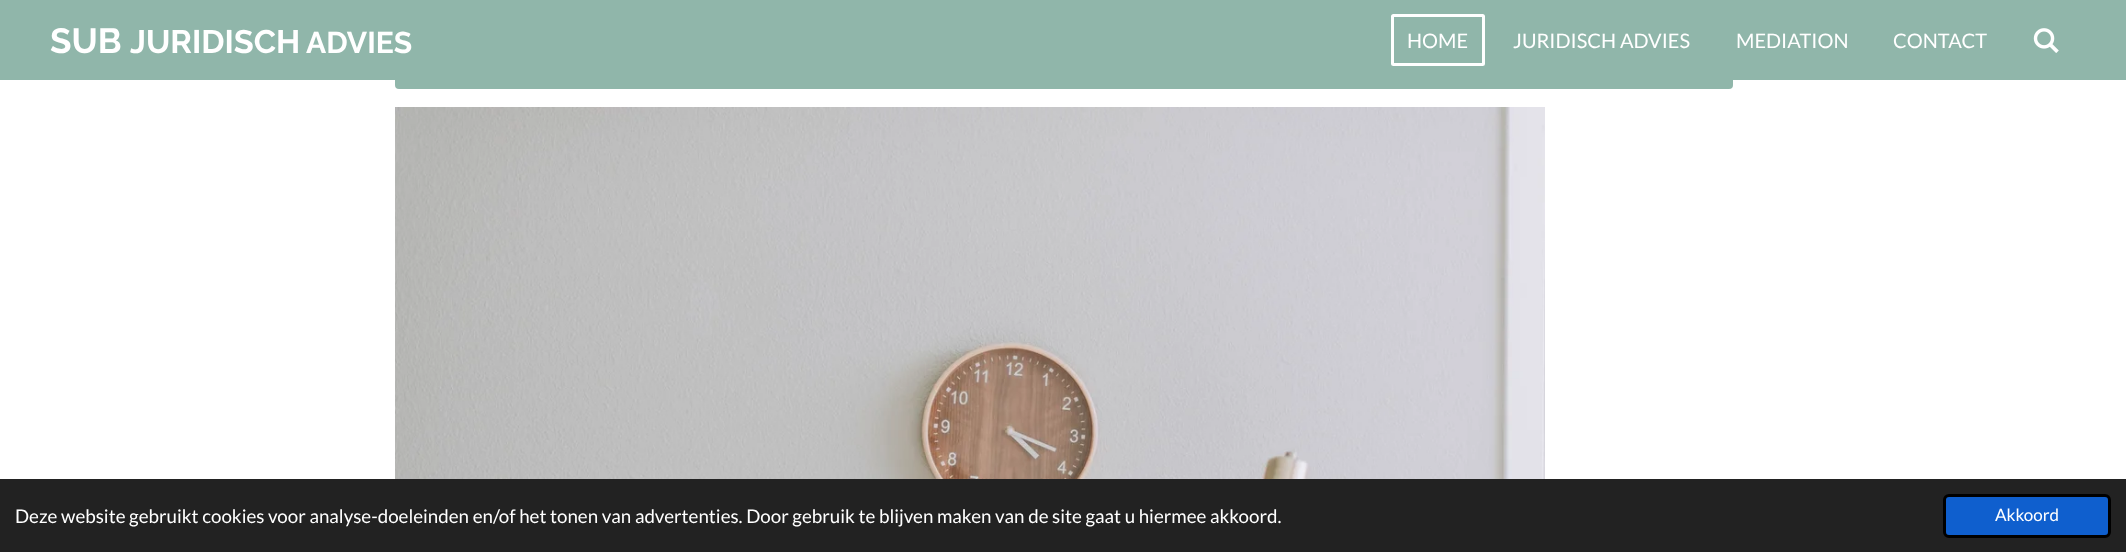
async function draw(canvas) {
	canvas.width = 2126;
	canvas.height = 552;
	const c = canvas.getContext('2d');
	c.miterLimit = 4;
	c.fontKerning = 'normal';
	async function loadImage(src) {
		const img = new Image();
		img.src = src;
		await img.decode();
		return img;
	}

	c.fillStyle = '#fff';
	c.fillRect(0, 0, 2126, 552);
	c.fillStyle = '#90b6aa';
	c.beginPath();
	c.roundRect(395, 44, 1338, 45, 4);
	c.fill();
	c.fillRect(0, 0, 2126, 80);
	c.font = 'bold 35px Raleway';
	c.fillStyle = '#fff';
	c.fillText('SUB', 50, 53);
	c.font = 'bold 32.5px Raleway';
	c.fillText('JURIDISCH', 130, 53);
	c.font = 'bold 30px Raleway';
	c.fillText('ADVIES', 306, 53);
	c.beginPath();
	c.roundRect(1392.5, 15.5, 91, 49, 1);
	c.strokeStyle = '#fff';
	c.lineWidth = 3;
	c.stroke();
	c.font = '20px Lato';
	for (const [text, x, y] of [
		['HOME', 1407, 48],
		['JURIDISCH ADVIES', 1513, 48],
		['MEDIATION', 1736, 48],
		['CONTACT', 1893, 48],
	]) {
		c.fillText(text, x, y);
	}
	c.drawImage(await loadImage('img1.png'), 2033, 28, 26, 25);
	c.drawImage(await loadImage('img2.png'), 395, 107, 1150, 372);
	c.fillStyle = '#222';
	c.fillRect(0, 479, 2126, 73);
	c.font = '18.75px Lato';
	c.fillStyle = '#fff';
	c.fillText('Deze website gebruikt cookies voor analyse-doeleinden en/of het tonen van advertenties. Door gebruik te blijven maken van de site gaat u hiermee akkoord.', 15, 523);
	c.fillStyle = '#0f5fce';
	c.beginPath();
	c.roundRect(1944.5, 495.5, 165, 41, 4.5);
	c.fill();
	c.strokeStyle = '#000';
	c.stroke();
	c.font = '17px Lato';
	c.fillStyle = '#fff';
	c.fillText('Akkoord', 1995, 521);
}

draw(document.querySelector('canvas'));
